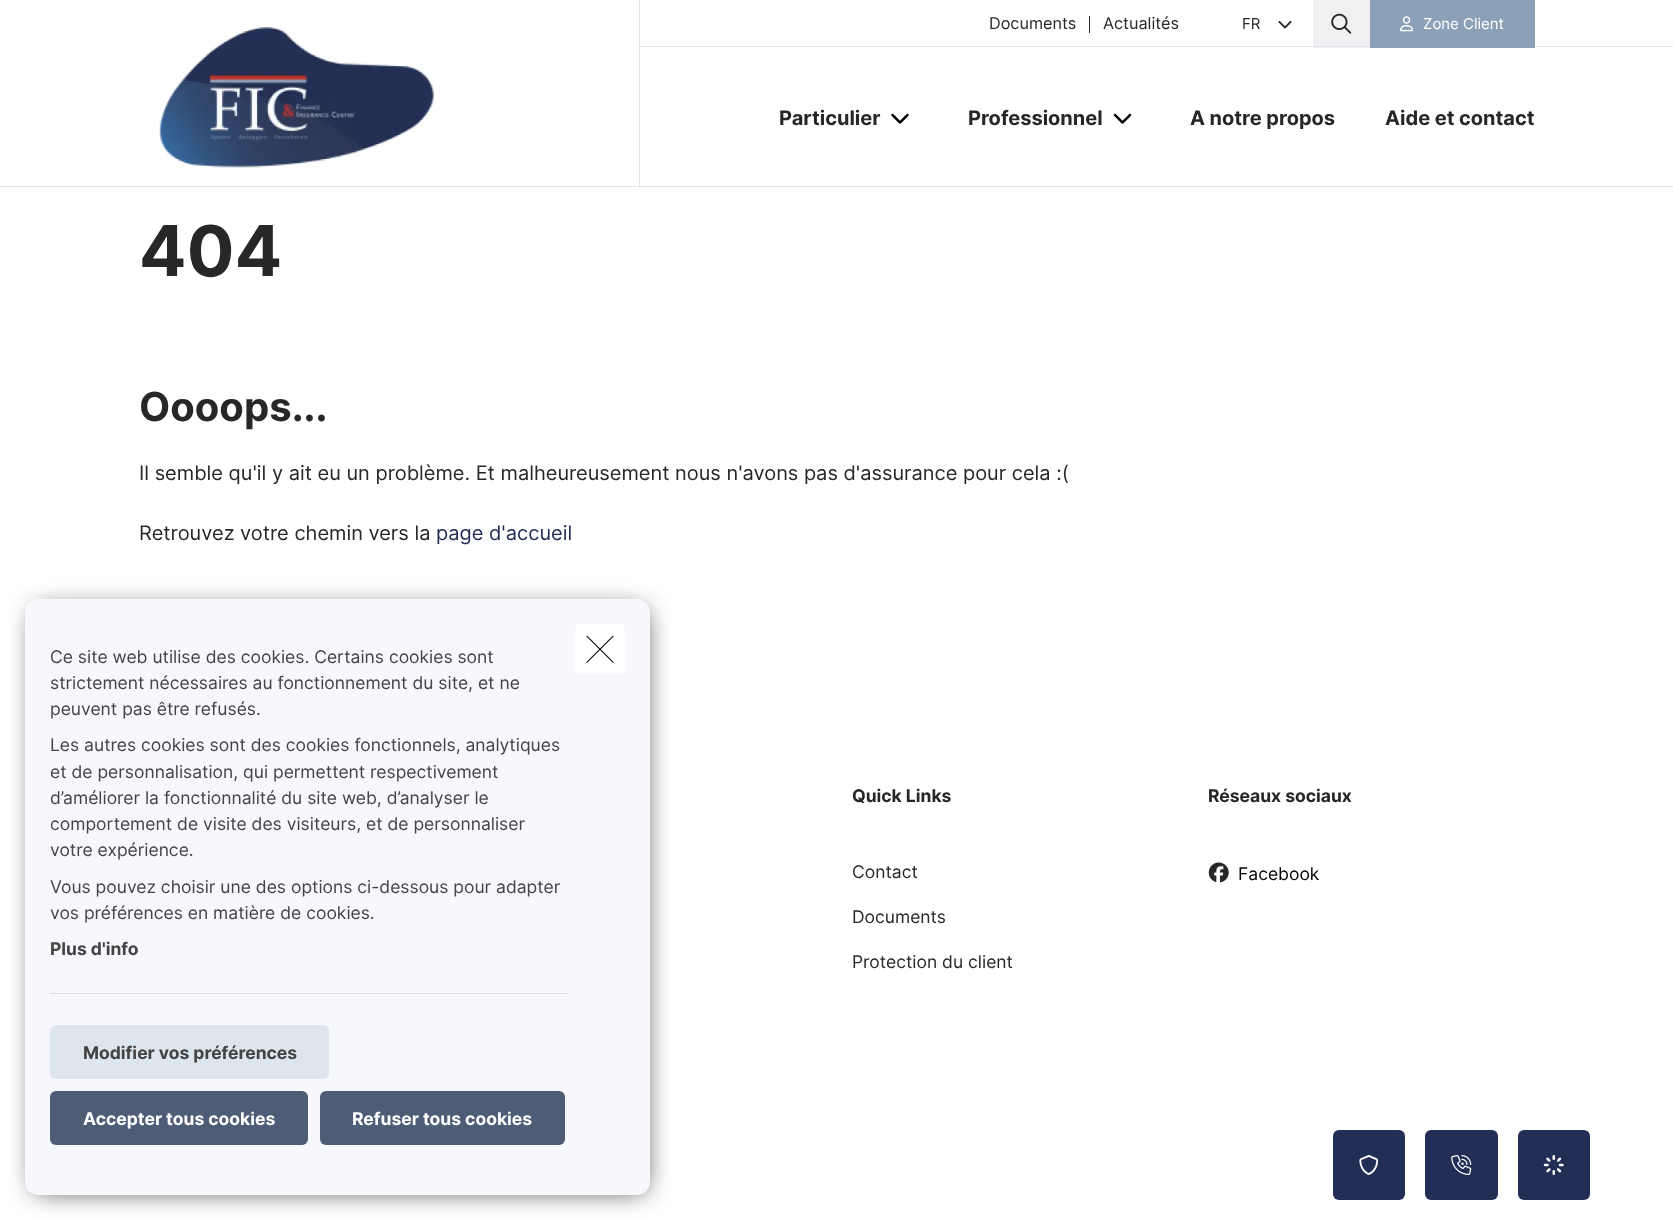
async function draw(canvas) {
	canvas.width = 1673;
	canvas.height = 1219;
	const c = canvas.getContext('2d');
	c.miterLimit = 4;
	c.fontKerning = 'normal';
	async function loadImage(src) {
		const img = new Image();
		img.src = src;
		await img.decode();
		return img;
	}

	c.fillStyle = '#fff';
	c.fillRect(0, 0, 1673, 1219);
	for (const [x, y, w, h, color] of [
		[0, 186, 1673, 1, '#dee5ec'],
		[140, 186, 499, 1, '#fff'],
		[639, 0, 1, 188, '#dee5ec'],
		[140, 186, 500, 1, '#dee5ec'],
	]) {
		c.fillStyle = color;
		c.fillRect(x, y, w, h);
	}
	c.drawImage(await loadImage('img1.png'), 159, 27, 275, 141);
	c.font = '16.25px Inter';
	c.fillStyle = '#272727';
	c.fillText('Documents', 989, 29);
	c.fillRect(1089, 16, 1, 17);
	c.fillText('Actualités', 1103, 29);
	c.font = '15px Inter';
	c.fillText('FR', 1242, 29);
	c.drawImage(await loadImage('img2.png'), 1278, 21, 14, 8);
	c.fillStyle = '#f0f0f3';
	c.fillRect(1313, 0, 57, 48);
	c.drawImage(await loadImage('img3.png'), 1331, 13, 21, 21);
	c.fillStyle = '#dee5ec';
	c.fillRect(640, 46, 1033, 1);
	c.fillStyle = '#8aa1b7';
	c.fillRect(1370, 0, 165, 48);
	c.drawImage(await loadImage('img4.png'), 1400, 16, 14, 16);
	c.fillStyle = '#fff';
	c.fillText('Zone Client', 1423, 29);
	c.font = 'bold 20px Inter';
	c.fillStyle = '#272727';
	c.fillText('Particulier', 779, 125);
	c.drawImage(await loadImage('img5.png'), 891, 113, 18, 11);
	c.fillText('Professionnel', 968, 125);
	c.drawImage(await loadImage('img6.png'), 1113, 113, 19, 11);
	c.fillText('A notre propos', 1190, 125);
	c.fillText('Aide et contact', 1385, 125);
	c.font = 'bold 70px Inter';
	c.fillText('404', 139, 276);
	c.font = 'bold 40px Inter';
	c.fillText('Oooops...', 139, 421);
	c.font = '20px Inter';
	c.fillText('Il semble qu\'il y ait eu un problème. Et malheureusement nous n\'avons pas d\'assurance pour cela :(', 139, 480);
	c.fillText('Retrouvez votre chemin vers la', 139, 540);
	c.fillStyle = '#232e57';
	c.fillText('page d\'accueil', 436, 540);
	c.fillStyle = '#000000bf';
	c.filter = 'blur(13px)';
	c.beginPath();
	c.roundRect(35, 610, 610, 581, 5);
	c.fill();
	c.filter = 'none';
	c.fillStyle = '#f6f8fc';
	c.beginPath();
	c.roundRect(25, 599, 625, 596, 13);
	c.fill();
	c.fillStyle = '#ddd';
	c.fillRect(50, 993, 519, 1);
	c.font = '17.5px Inter';
	c.fillStyle = '#444';
	for (const [text, x, y] of [
		['Ce site web utilise des cookies. Certains cookies sont', 50, 663],
		['strictement nécessaires au fonctionnement du site, et ne', 50, 689],
		['peuvent pas être refusés.', 50, 715],
		['Les autres cookies sont des cookies fonctionnels, analytiques', 50, 751],
		['et de personnalisation, qui permettent respectivement', 50, 778],
		['d’améliorer la fonctionnalité du site web, d’analyser le', 50, 804],
		['comportement de visite des visiteurs, et de personnaliser', 50, 830],
		['votre expérience.', 50, 856],
		['Vous pouvez choisir une des options ci-dessous pour adapter', 50, 893],
		['vos préférences en matière de cookies.', 50, 919],
	]) {
		c.fillText(text, x, y);
	}
	c.font = 'bold 17.5px Inter';
	c.fillText('Plus d\'info', 50, 955);
	c.fillStyle = '#dde5ed';
	c.beginPath();
	c.roundRect(50, 1025, 279, 54, 6);
	c.fill();
	c.fillStyle = '#444';
	c.fillText('Modifier vos préférences', 83, 1059);
	c.fillStyle = '#4e5c76';
	c.beginPath();
	c.roundRect(50, 1091, 258, 54, 6);
	c.fill();
	c.fillStyle = '#fff';
	c.fillText('Accepter tous cookies', 83, 1125);
	c.fillStyle = '#4e5c76';
	c.beginPath();
	c.roundRect(320, 1091, 245, 54, 6);
	c.fill();
	c.fillStyle = '#fff';
	c.fillText('Refuser tous cookies', 352, 1125);
	c.beginPath();
	c.roundRect(575, 624, 50, 50, 6);
	c.fill();
	c.fillStyle = '#000';
	c.beginPath();
	c.moveTo(587, 635.5);
	c.lineTo(613.5, 662);
	c.lineTo(613, 663);
	c.lineTo(586.5, 636.5);
	c.closePath();
	c.fill();
	c.beginPath();
	c.moveTo(586.5, 662);
	c.lineTo(613, 635.5);
	c.lineTo(613.5, 636.5);
	c.lineTo(587, 663);
	c.closePath();
	c.fill();
	c.fillStyle = '#272727';
	c.fillText('Quick Links', 852, 802);
	c.font = '17.5px Inter';
	for (const [text, x, y] of [
		['Contact', 852, 878],
		['Documents', 852, 923],
		['Protection du client', 852, 968],
	]) {
		c.fillText(text, x, y);
	}
	c.font = 'bold 17.5px Inter';
	c.fillText('Réseaux sociaux', 1208, 802);
	c.drawImage(await loadImage('img7.png'), 1208, 862, 21, 21);
	c.font = '17.5px Inter';
	c.fillStyle = '#000';
	c.fillText('Facebook', 1238, 880);
	c.fillStyle = '#232e57';
	c.beginPath();
	c.roundRect(1333, 1130, 72, 70, 6);
	c.fill();
	c.drawImage(await loadImage('img8.png'), 1359, 1155, 20, 20);
	c.beginPath();
	c.roundRect(1425, 1130, 73, 70, 6);
	c.fill();
	c.drawImage(await loadImage('img9.png'), 1451, 1155, 21, 20);
	c.beginPath();
	c.roundRect(1518, 1130, 72, 70, 6);
	c.fill();
	c.drawImage(await loadImage('img10.png'), 1543, 1155, 21, 20);
}

draw(document.querySelector('canvas'));
